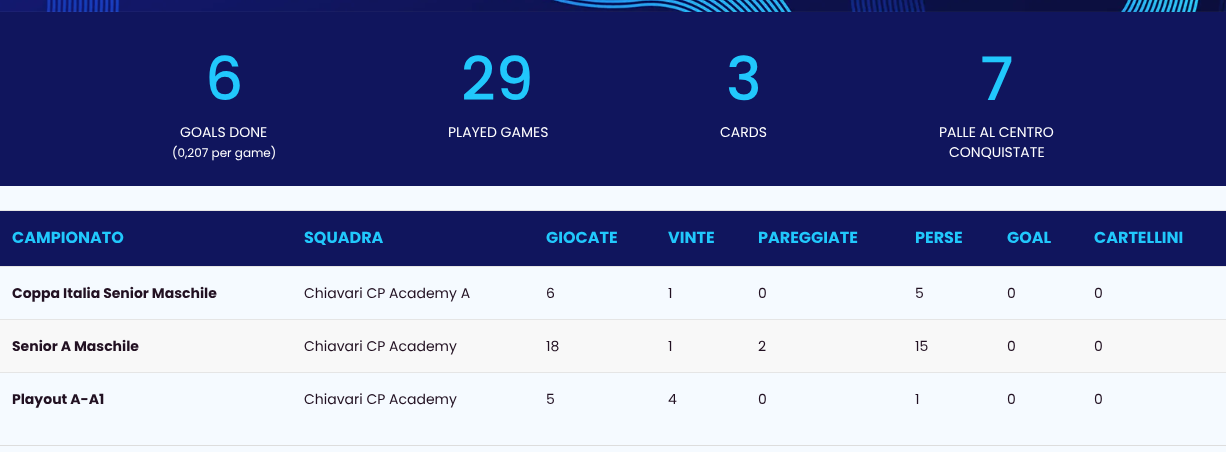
async function draw(canvas) {
	canvas.width = 1226;
	canvas.height = 452;
	const c = canvas.getContext('2d');
	c.miterLimit = 4;
	c.fontKerning = 'normal';
	async function loadImage(src) {
		const img = new Image();
		img.src = src;
		await img.decode();
		return img;
	}

	c.fillStyle = '#f5faff';
	c.fillRect(0, 0, 1226, 452);
	c.drawImage(await loadImage('img1.png'), 0, 0, 1226, 12);
	c.fillStyle = '#10155d';
	c.fillRect(0, 12, 1226, 174);
	c.font = '500 60px Poppins';
	c.fillStyle = '#21c8fc';
	c.fillText('6', 205, 100);
	c.font = '14px Poppins';
	c.fillStyle = '#fff';
	c.fillText('GOALS DONE', 180, 137);
	c.font = '12px Poppins';
	c.fillText('(0,207 per game)', 172, 157);
	c.font = '500 60px Poppins';
	c.fillStyle = '#21c8fc';
	c.fillText('29', 461, 100);
	c.font = '14px Poppins';
	c.fillStyle = '#fff';
	c.fillText('PLAYED GAMES', 448, 137);
	c.font = '500 60px Poppins';
	c.fillStyle = '#21c8fc';
	c.fillText('3', 726, 100);
	c.font = '14px Poppins';
	c.fillStyle = '#fff';
	c.fillText('CARDS', 720, 137);
	c.font = '500 60px Poppins';
	c.fillStyle = '#21c8fc';
	c.fillText('7', 980, 100);
	c.font = '14px Poppins';
	c.fillStyle = '#fff';
	c.fillText('PALLE AL CENTRO', 939, 137);
	c.fillText('CONQUISTATE', 949, 157);
	for (const [x, y, w, h, color] of [
		[0, 210, 1226, 1, '#e5e5e5'],
		[0, 266, 1226, 1, '#e5e5e5'],
		[0, 211, 1226, 55, '#10155d'],
	]) {
		c.fillStyle = color;
		c.fillRect(x, y, w, h);
	}
	c.font = 'bold 16px Poppins';
	c.fillStyle = '#21c8fc';
	for (const [text, x, y] of [
		['CAMPIONATO', 12, 243],
		['SQUADRA', 304, 243],
		['GIOCATE', 546, 243],
		['VINTE', 668, 243],
		['PAREGGIATE', 758, 243],
		['PERSE', 915, 243],
		['GOAL', 1007, 243],
		['CARTELLINI', 1094, 243],
	]) {
		c.fillText(text, x, y);
	}
	c.font = 'bold 14px Poppins';
	c.fillStyle = '#212';
	c.fillText('Coppa Italia Senior Maschile', 12, 298);
	c.font = '14px Poppins';
	for (const [text, x, y] of [
		['Chiavari CP Academy A', 304, 298],
		['6', 546, 298],
		['1', 668, 298],
		['0', 758, 298],
		['5', 915, 298],
		['0', 1007, 298],
		['0', 1094, 298],
	]) {
		c.fillText(text, x, y);
	}
	for (const [x, y, w, h, color] of [
		[0, 320, 1226, 52, '#f8f8f8'],
		[0, 319, 1226, 1, '#e5e5e5'],
		[0, 372, 1226, 1, '#e5e5e5'],
	]) {
		c.fillStyle = color;
		c.fillRect(x, y, w, h);
	}
	c.font = 'bold 14px Poppins';
	c.fillStyle = '#212';
	c.fillText('Senior A Maschile', 12, 351);
	c.font = '14px Poppins';
	for (const [text, x, y] of [
		['Chiavari CP Academy', 304, 351],
		['18', 546, 351],
		['1', 668, 351],
		['2', 758, 351],
		['15', 915, 351],
		['0', 1007, 351],
		['0', 1094, 351],
	]) {
		c.fillText(text, x, y);
	}
	c.font = 'bold 14px Poppins';
	c.fillText('Playout A-A1', 12, 404);
	c.font = '14px Poppins';
	for (const [text, x, y] of [
		['Chiavari CP Academy', 304, 404],
		['5', 546, 404],
		['4', 668, 404],
		['0', 758, 404],
		['1', 915, 404],
		['0', 1007, 404],
		['0', 1094, 404],
	]) {
		c.fillText(text, x, y);
	}
	c.fillStyle = '#ddd';
	c.fillRect(0, 445, 1226, 1);
}

draw(document.querySelector('canvas'));
